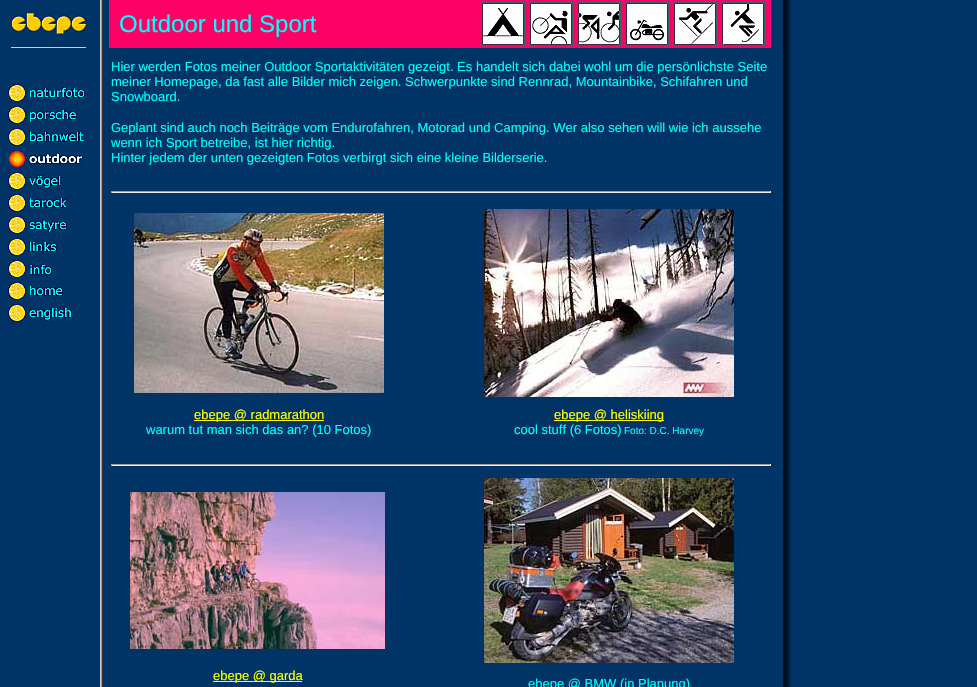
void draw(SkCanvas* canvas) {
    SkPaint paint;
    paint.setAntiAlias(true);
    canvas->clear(0xFF003366);
    canvas->drawImageRect(SkImages::DeferredFromEncodedData(SkData::MakeFromFileName("img1.png")), SkRect::MakeXYWH(100, 0, 692, 687), SkSamplingOptions());
    paint.setColor(0xFFFF0066);
    canvas->drawRect(SkRect::MakeXYWH(109, 0, 662, 48), paint);
    canvas->drawImageRect(SkImages::DeferredFromEncodedData(SkData::MakeFromFileName("img2.png")), SkRect::MakeXYWH(11, 13, 75, 35), SkSamplingOptions());
    SkFont font1(fontMgr->matchFamilyStyle("Liberation Sans", SkFontStyle::Normal()), 24);
    font1.setSubpixel(true);
    paint.setColor(0xFF00FFFF);
    canvas->drawString("Outdoor und Sport", 119, 32, font1, paint);
    canvas->drawImageRect(SkImages::DeferredFromEncodedData(SkData::MakeFromFileName("img3.png")), SkRect::MakeXYWH(481, 2, 284, 44), SkSamplingOptions());
    canvas->drawImageRect(SkImages::DeferredFromEncodedData(SkData::MakeFromFileName("img4.png")), SkRect::MakeXYWH(8, 84, 78, 18), SkSamplingOptions());
    canvas->drawImageRect(SkImages::DeferredFromEncodedData(SkData::MakeFromFileName("img5.png")), SkRect::MakeXYWH(8, 106, 69, 18), SkSamplingOptions());
    canvas->drawImageRect(SkImages::DeferredFromEncodedData(SkData::MakeFromFileName("img6.png")), SkRect::MakeXYWH(8, 128, 77, 18), SkSamplingOptions());
    canvas->drawImageRect(SkImages::DeferredFromEncodedData(SkData::MakeFromFileName("img7.png")), SkRect::MakeXYWH(8, 150, 75, 18), SkSamplingOptions());
    canvas->drawImageRect(SkImages::DeferredFromEncodedData(SkData::MakeFromFileName("img8.png")), SkRect::MakeXYWH(8, 172, 54, 18), SkSamplingOptions());
    canvas->drawImageRect(SkImages::DeferredFromEncodedData(SkData::MakeFromFileName("img9.png")), SkRect::MakeXYWH(8, 194, 59, 18), SkSamplingOptions());
    canvas->drawImageRect(SkImages::DeferredFromEncodedData(SkData::MakeFromFileName("img10.png")), SkRect::MakeXYWH(8, 216, 59, 18), SkSamplingOptions());
    canvas->drawImageRect(SkImages::DeferredFromEncodedData(SkData::MakeFromFileName("img11.png")), SkRect::MakeXYWH(8, 238, 49, 18), SkSamplingOptions());
    canvas->drawImageRect(SkImages::DeferredFromEncodedData(SkData::MakeFromFileName("img12.png")), SkRect::MakeXYWH(8, 260, 45, 18), SkSamplingOptions());
    canvas->drawImageRect(SkImages::DeferredFromEncodedData(SkData::MakeFromFileName("img13.png")), SkRect::MakeXYWH(8, 282, 56, 18), SkSamplingOptions());
    canvas->drawImageRect(SkImages::DeferredFromEncodedData(SkData::MakeFromFileName("img14.png")), SkRect::MakeXYWH(8, 304, 64, 19), SkSamplingOptions());
    SkFont font2(fontMgr->matchFamilyStyle("Liberation Sans", SkFontStyle::Normal()), 13);
    font2.setSubpixel(true);
    canvas->drawString("Hier werden Fotos meiner Outdoor Sportaktivitäten gezeigt. Es handelt sich dabei wohl um die persönlichste Seite", 111, 71, font2, paint);
    canvas->drawString("meiner Homepage, da fast alle Bilder mich zeigen. Schwerpunkte sind Rennrad, Mountainbike, Schifahren und", 111, 86, font2, paint);
    canvas->drawString("Snowboard.", 111, 101, font2, paint);
    canvas->drawString("Geplant sind auch noch Beiträge vom Endurofahren, Motorad und Camping. Wer also sehen will wie ich aussehe", 111, 132, font2, paint);
    canvas->drawString("wenn ich Sport betreibe, ist hier richtig.", 111, 147, font2, paint);
    canvas->drawString("Hinter jedem der unten gezeigten Fotos verbirgt sich eine kleine Bilderserie.", 111, 162, font2, paint);
    paint.setColor(0xFF9F9F9F);
    canvas->drawRect(SkRect::MakeXYWH(111, 191, 660, 1), paint);
    paint.setColor(0xFFEEEEEE);
    canvas->drawRect(SkRect::MakeXYWH(770, 191, 1, 2), paint);
    canvas->drawRect(SkRect::MakeXYWH(111, 192, 660, 1), paint);
    paint.setColor(0xFF9F9F9F);
    canvas->drawRect(SkRect::MakeXYWH(111, 191, 1, 2), paint);
    canvas->drawImageRect(SkImages::DeferredFromEncodedData(SkData::MakeFromFileName("img15.png")), SkRect::MakeXYWH(134, 213, 250, 180), SkSamplingOptions());
    canvas->drawImageRect(SkImages::DeferredFromEncodedData(SkData::MakeFromFileName("img16.png")), SkRect::MakeXYWH(484, 209, 250, 188), SkSamplingOptions());
    paint.setColor(0xFFFFFF00);
    canvas->drawRect(SkRect::MakeXYWH(194, 420, 130, 1), paint);
    canvas->drawString("ebepe @ radmarathon", 194, 419, font2, paint);
    paint.setColor(0xFF00FFFF);
    canvas->drawString("warum tut man sich das an? (10 Fotos)", 146, 434, font2, paint);
    paint.setColor(0xFFFFFF00);
    canvas->drawRect(SkRect::MakeXYWH(554, 420, 110, 1), paint);
    canvas->drawString("ebepe @ heliskiing", 554, 419, font2, paint);
    paint.setColor(0xFF00FFFF);
    canvas->drawString("cool stuff (6 Fotos)", 514, 434, font2, paint);
    SkFont font3(fontMgr->matchFamilyStyle("Liberation Sans", SkFontStyle::Normal()), 10);
    font3.setSubpixel(true);
    canvas->drawString("Foto: D.C. Harvey", 624, 434, font3, paint);
    paint.setColor(0xFF9F9F9F);
    canvas->drawRect(SkRect::MakeXYWH(111, 464, 660, 1), paint);
    paint.setColor(0xFFEEEEEE);
    canvas->drawRect(SkRect::MakeXYWH(770, 464, 1, 2), paint);
    canvas->drawRect(SkRect::MakeXYWH(111, 465, 660, 1), paint);
    paint.setColor(0xFF9F9F9F);
    canvas->drawRect(SkRect::MakeXYWH(111, 464, 1, 2), paint);
    canvas->drawImageRect(SkImages::DeferredFromEncodedData(SkData::MakeFromFileName("img17.png")), SkRect::MakeXYWH(130, 492, 255, 157), SkSamplingOptions());
    canvas->drawImageRect(SkImages::DeferredFromEncodedData(SkData::MakeFromFileName("img18.png")), SkRect::MakeXYWH(484, 478, 250, 185), SkSamplingOptions());
    paint.setColor(0xFFFFFF00);
    canvas->drawRect(SkRect::MakeXYWH(213, 681, 89, 1), paint);
    canvas->drawString("ebepe @ garda", 213, 680, font2, paint);
    paint.setColor(0xFF00FFFF);
    canvas->drawString("ebepe @ BMW (in Planung)", 528, 688, font2, paint);
}
